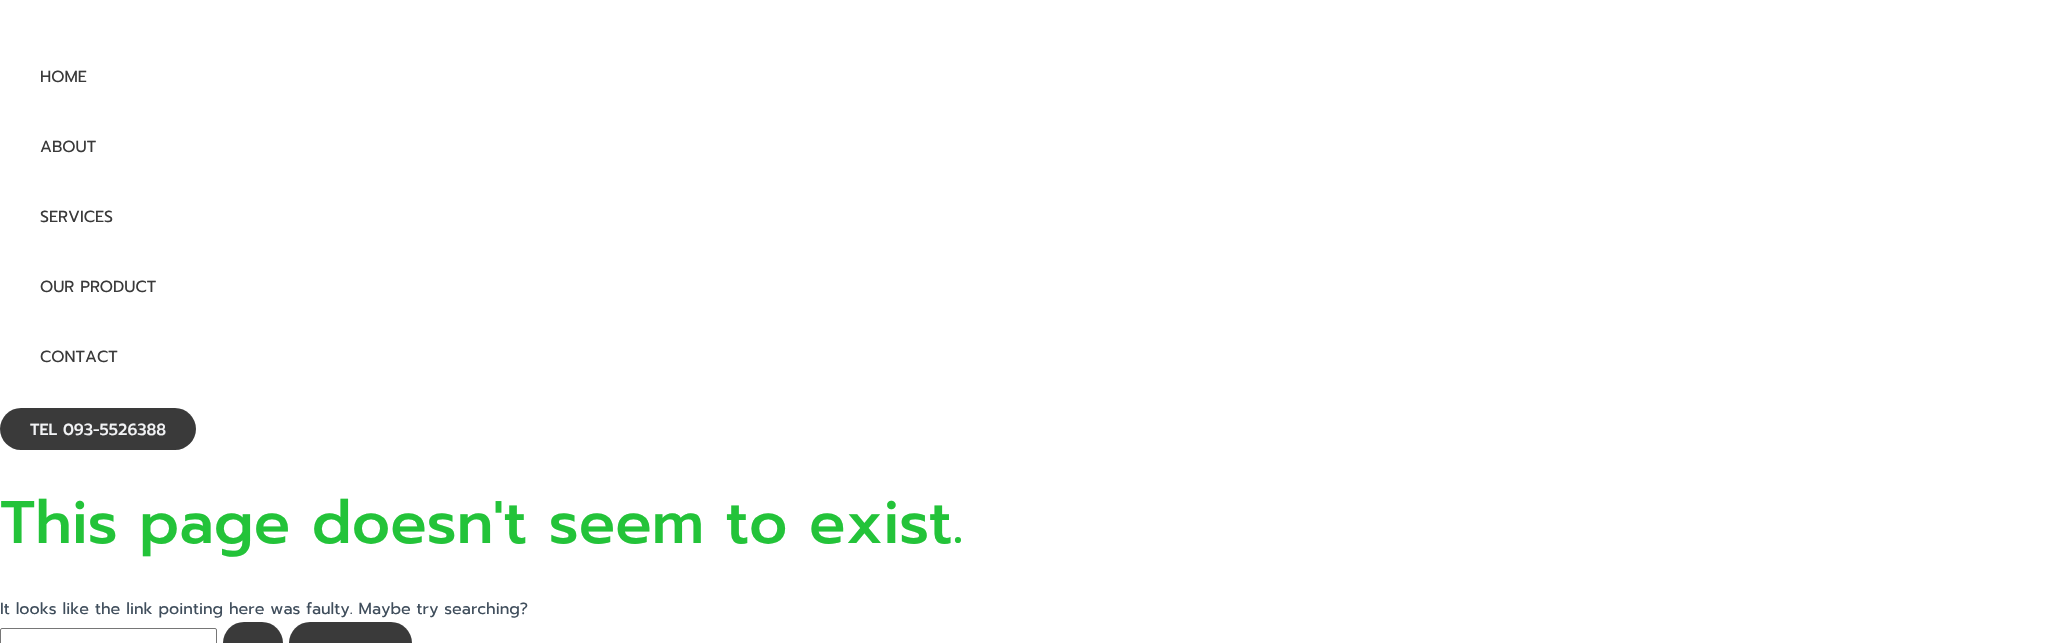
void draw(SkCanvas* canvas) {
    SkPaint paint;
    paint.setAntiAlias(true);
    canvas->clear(0xFFFFFFFF);
    SkFont font1(fontMgr->matchFamilyStyle("Prompt", SkFontStyle::Normal()), 16);
    font1.setSubpixel(true);
    paint.setColor(0xFF3A3A3A);
    canvas->drawString("HOME", 40, 82, font1, paint);
    canvas->drawString("ABOUT", 40, 152, font1, paint);
    canvas->drawString("SERVICES", 40, 222, font1, paint);
    canvas->drawString("OUR PRODUCT", 40, 292, font1, paint);
    canvas->drawString("CONTACT", 40, 362, font1, paint);
    canvas->drawRoundRect(SkRect::MakeXYWH(0, 408, 196, 42), 21, 21, paint);
    SkFont font2(fontMgr->matchFamilyStyle("Prompt", SkFontStyle(500, SkFontStyle::kNormal_Width, SkFontStyle::kUpright_Slant)), 16);
    font2.setSubpixel(true);
    paint.setColor(0xFFF2F3F5);
    canvas->drawString("TEL 093-5526388", 30, 435, font2, paint);
    SkFont font3(fontMgr->matchFamilyStyle("Prompt", SkFontStyle(500, SkFontStyle::kNormal_Width, SkFontStyle::kUpright_Slant)), 60);
    font3.setSubpixel(true);
    paint.setColor(0xFF23C339);
    canvas->drawString("This page doesn't seem to exist.", 0, 543, font3, paint);
    paint.setColor(0xFF404E5C);
    canvas->drawString("It looks like the link pointing here was faulty. Maybe try searching?", 0, 614, font1, paint);
    paint.setStyle(SkPaint::kStroke_Style);
    paint.setStrokeWidth(1);
    paint.setColor(0xFF767676);
    canvas->drawRoundRect(SkRect::MakeXYWH(0.5f, 628.5f, 216, 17), 1.5f, 1.5f, paint);
    paint.setStyle(SkPaint::kFill_Style);
    paint.setColor(0xFF3A3A3A);
    canvas->drawRoundRect(SkRect::MakeXYWH(223, 622, 60, 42), 21, 21, paint);
    canvas->drawRoundRect(SkRect::MakeXYWH(289, 622, 123, 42), 21, 21, paint);
}
